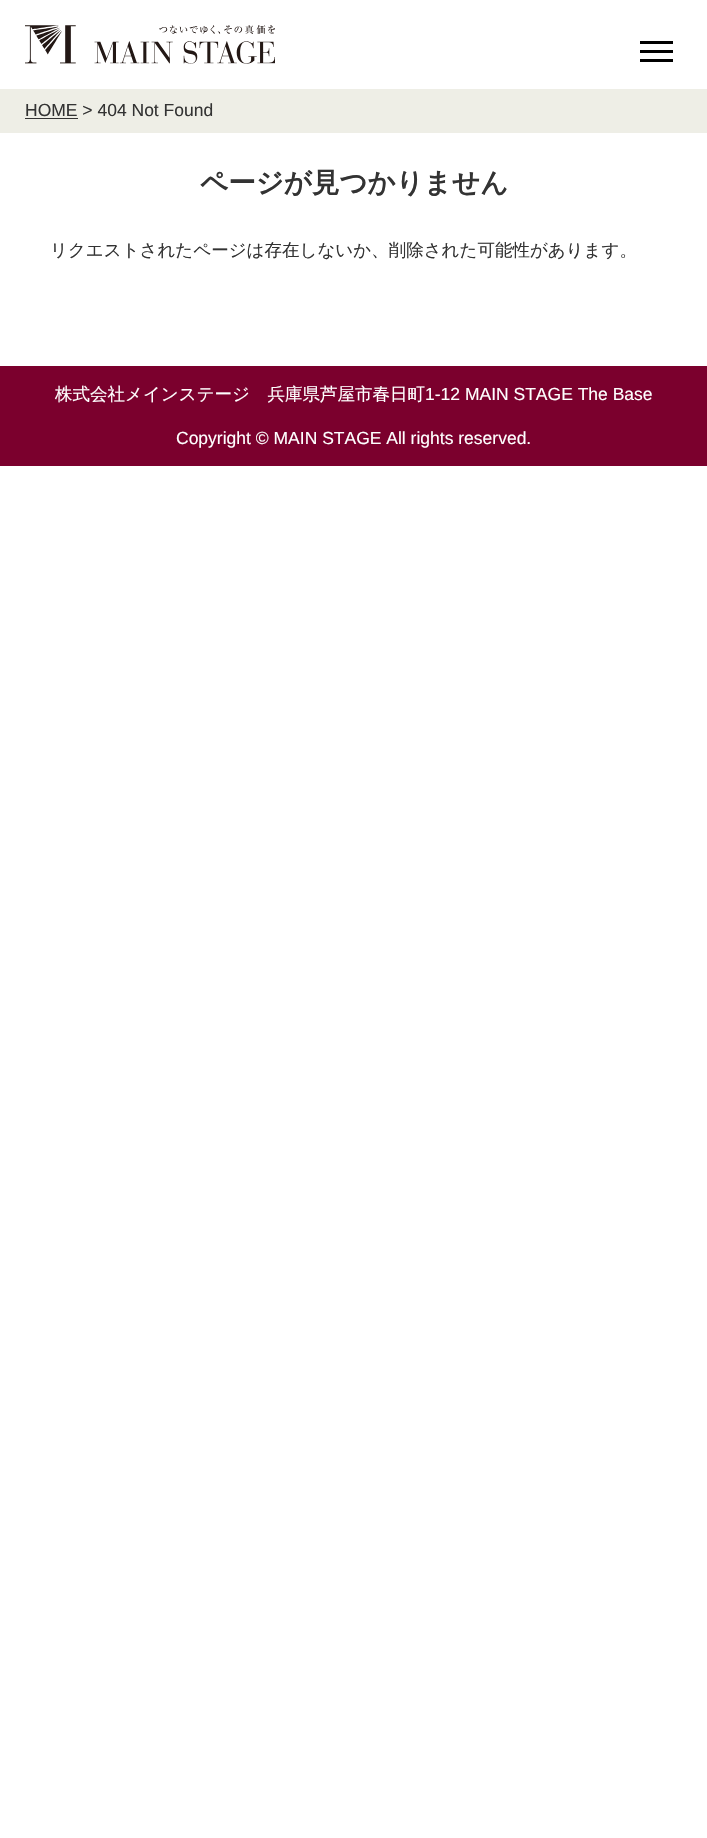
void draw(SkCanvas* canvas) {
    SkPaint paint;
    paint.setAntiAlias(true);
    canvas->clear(0xFFFFFFFF);
    canvas->drawImageRect(SkImages::DeferredFromEncodedData(SkData::MakeFromFileName("img1.png")), SkRect::MakeXYWH(25, 25, 250, 39), SkSamplingOptions());
    paint.setColor(0xFF000000);
    canvas->drawRect(SkRect::MakeXYWH(640, 41, 33, 3), paint);
    canvas->drawRect(SkRect::MakeXYWH(640, 50, 33, 3), paint);
    canvas->drawRect(SkRect::MakeXYWH(640, 59, 33, 3), paint);
    paint.setColor(0xFFEEEEE6);
    canvas->drawRect(SkRect::MakeXYWH(0, 89, 707, 44), paint);
    SkFont font1(fontMgr->matchFamilyStyle("Liberation Sans", SkFontStyle::Normal()), 17.5f);
    font1.setSubpixel(true);
    paint.setColor(0xFF333333);
    canvas->drawString("HOME > 404 Not Found", 25, 116, font1, paint);
    canvas->drawRect(SkRect::MakeXYWH(25, 118, 53, 1), paint);
    SkFont font2(fontMgr->matchFamilyStyle("WenQuanYi Zen Hei", SkFontStyle::Bold()), 27.5f);
    font2.setSubpixel(true);
    canvas->drawString("ページが見つかりません", 200, 192, font2, paint);
    SkFont font3(fontMgr->matchFamilyStyle("WenQuanYi Zen Hei", SkFontStyle(500, SkFontStyle::kNormal_Width, SkFontStyle::kUpright_Slant)), 17.5f);
    font3.setSubpixel(true);
    canvas->drawString("リクエストされたページは存在しないか、削除された可能性があります。", 50, 256, font3, paint);
    paint.setColor(0xFF7B002D);
    canvas->drawRect(SkRect::MakeXYWH(0, 366, 707, 100), paint);
    paint.setColor(0xFFFFFFFF);
    canvas->drawString("株式会社メインステージ　兵庫県芦屋市春日町", 55, 400, font3, paint);
    canvas->drawString("1-12 MAIN STAGE The Base", 425, 400, font1, paint);
    canvas->drawString("Copyright © MAIN STAGE All rights reserved.", 176, 444, font1, paint);
}
